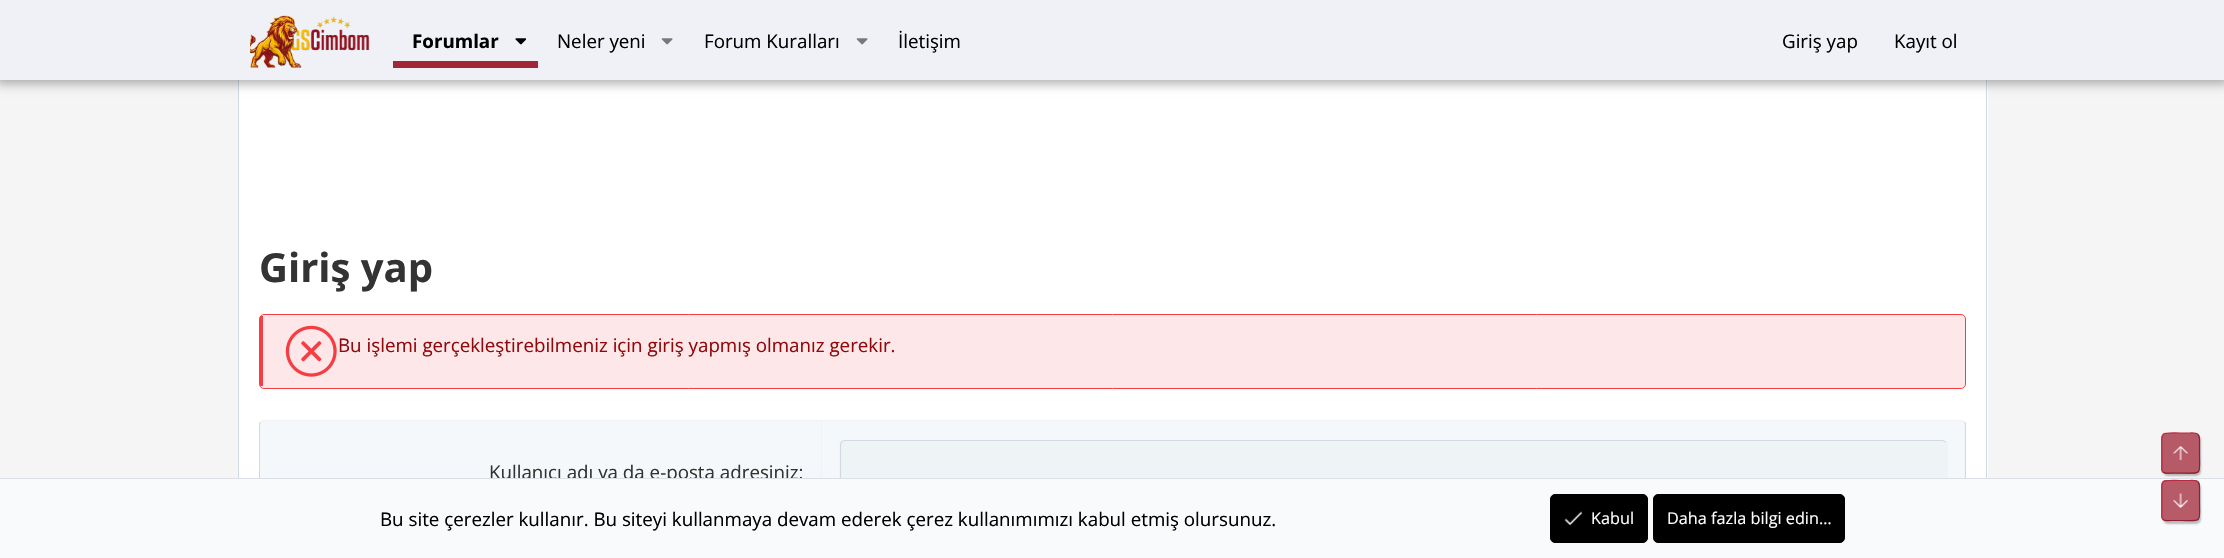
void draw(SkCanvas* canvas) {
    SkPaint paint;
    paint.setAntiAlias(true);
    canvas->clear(0xFFF5F5F5);
    paint.setColor(0xFFFFFFFF);
    canvas->drawRect(SkRect::MakeXYWH(239, 80, 1749, 398), paint);
    paint.setColor(0xFFD0DAE2);
    canvas->drawRect(SkRect::MakeXYWH(1986, 80, 1, 398), paint);
    canvas->drawRect(SkRect::MakeXYWH(238, 80, 1, 398), paint);
    paint.setColor(0x4D000000);
    paint.setMaskFilter(SkMaskFilter::MakeBlur(kNormal_SkBlurStyle, 5));
    canvas->drawRect(SkRect::MakeXYWH(-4, -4, 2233, 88), paint);
    paint.setMaskFilter(nullptr);
    paint.setColor(0xFFEFF1F6);
    canvas->drawRect(SkRect::MakeXYWH(0, 0, 2224, 80), paint);
    canvas->drawImageRect(SkImages::DeferredFromEncodedData(SkData::MakeFromFileName("img1.png")), SkRect::MakeXYWH(250, 15, 120, 53), SkSamplingOptions());
    paint.setColor(0xFFA12638);
    canvas->drawRect(SkRect::MakeXYWH(393, 61, 145, 7), paint);
    SkFont font1(fontMgr->matchFamilyStyle("Open Sans", SkFontStyle::Bold()), 18.75f);
    font1.setSubpixel(true);
    paint.setColor(0xFF000000);
    canvas->drawString("Forumlar", 412, 48, font1, paint);
    canvas->drawImageRect(SkImages::DeferredFromEncodedData(SkData::MakeFromFileName("img2.png")), SkRect::MakeXYWH(515, 38, 11, 7), SkSamplingOptions());
    SkFont font2(fontMgr->matchFamilyStyle("Open Sans", SkFontStyle::Normal()), 18.75f);
    font2.setSubpixel(true);
    canvas->drawString("Neler yeni", 557, 48, font2, paint);
    canvas->drawImageRect(SkImages::DeferredFromEncodedData(SkData::MakeFromFileName("img3.png")), SkRect::MakeXYWH(661, 38, 12, 7), SkSamplingOptions());
    canvas->drawString("Forum Kuralları", 704, 48, font2, paint);
    canvas->drawImageRect(SkImages::DeferredFromEncodedData(SkData::MakeFromFileName("img3.png")), SkRect::MakeXYWH(856, 38, 12, 7), SkSamplingOptions());
    canvas->drawString("İletişim", 898, 48, font2, paint);
    canvas->drawString("Giriş yap", 1782, 48, font2, paint);
    canvas->drawString("Kayıt ol", 1894, 48, font2, paint);
    SkFont font3(fontMgr->matchFamilyStyle("Open Sans", SkFontStyle::Bold()), 40);
    font3.setSubpixel(true);
    paint.setColor(0xFF333333);
    canvas->drawString("Giriş yap", 259, 282, font3, paint);
    paint.setColor(0xFFFEE7E8);
    canvas->drawPath(SkPathBuilder().moveTo(264, 315).lineTo(1961, 315).cubicTo(1963, 315, 1965, 317, 1965, 319).lineTo(1965, 384).cubicTo(1965, 386, 1963, 388, 1961, 388).lineTo(264, 388).cubicTo(263, 388, 262, 386, 262, 384).lineTo(262, 319).cubicTo(262, 317, 263, 315, 264, 315).close().detach(), paint);
    paint.setStyle(SkPaint::kStroke_Style);
    paint.setStrokeWidth(1);
    paint.setColor(0xFFF53D43);
    canvas->drawRoundRect(SkRect::MakeXYWH(259.5f, 314.5f, 1706, 74), 4.5f, 4.5f, paint);
    paint.setStyle(SkPaint::kFill_Style);
    canvas->drawRect(SkRect::MakeXYWH(260, 316, 3, 70), paint);
    canvas->drawImageRect(SkImages::DeferredFromEncodedData(SkData::MakeFromFileName("img4.png")), SkRect::MakeXYWH(285, 325, 52, 52), SkSamplingOptions());
    paint.setColor(0xFF91080C);
    canvas->drawString("Bu işlemi gerçekleştirebilmeniz için giriş yapmış olmanız gerekir.", 338, 352, font2, paint);
    paint.setColor(0xFFF5F8FA);
    canvas->drawRoundRect(SkRect::MakeXYWH(259, 420, 1707, 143), 5, 5, paint);
    paint.setStyle(SkPaint::kStroke_Style);
    paint.setStrokeWidth(1.2f);
    paint.setColor(0xFFEFF1F6);
    canvas->drawPath(SkPathBuilder().moveTo(260.5f, 422).lineTo(264, 420.5f).lineTo(1961, 420.5f).lineTo(1964.5f, 422).detach(), paint);
    canvas->save();
    canvas->clipRect(SkRect::MakeXYWH(259, 234, 1707, 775));
    paint.setColor(0xFFD0DAE2);
    canvas->drawPath(SkPathBuilder().moveTo(1964.5f, 422).lineTo(1965.5f, 423.5f).lineTo(1965.5f, 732.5f).lineTo(1965.5f, 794).lineTo(1964.5f, 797).detach(), paint);
    canvas->drawPath(SkPathBuilder().moveTo(260.5f, 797).lineTo(259.5f, 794).lineTo(259.5f, 423.5f).lineTo(260.5f, 422).detach(), paint);
    canvas->restore();
    paint.setStyle(SkPaint::kFill_Style);
    paint.setColor(0xFFF5F8FA);
    canvas->drawPath(SkPathBuilder().moveTo(264, 421).lineTo(823, 421).lineTo(823, 521).lineTo(260, 521).lineTo(260, 425).cubicTo(260, 423, 262, 421, 264, 421).close().detach(), paint);
    paint.setColor(0xFFEFF1F6);
    canvas->drawRect(SkRect::MakeXYWH(821, 421, 1, 57), paint);
    paint.setColor(0xFF333333);
    canvas->drawString("Kullanıcı adı ya da e-posta adresiniz:", 489, 479, font2, paint);
    paint.setColor(0xFFEEF3F6);
    canvas->drawRoundRect(SkRect::MakeXYWH(840, 440, 1108, 63), 5, 5, paint);
    paint.setStyle(SkPaint::kStroke_Style);
    paint.setColor(0xFFD0DAE2);
    canvas->drawPath(SkPathBuilder().moveTo(842, 500.5f).lineTo(840.5f, 498.5f).lineTo(840.5f, 444.5f).lineTo(841.5f, 442).cubicTo(842.5f, 441, 843.5f, 440.5f, 845, 440.5f).lineTo(1942.5f, 440.5f).lineTo(1945.5f, 442).detach(), paint);
    paint.setStyle(SkPaint::kFill_Style);
    paint.setColor(0xFFF9FAFB);
    canvas->drawRect(SkRect::MakeXYWH(0, 479, 2224, 79), paint);
    paint.setColor(0xFFDBE0E6);
    canvas->drawRect(SkRect::MakeXYWH(0, 478, 2224, 1), paint);
    canvas->save();
    canvas->clipPath(SkPathBuilder(SkPathFillType::kEvenOdd).moveTo(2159, 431).lineTo(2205, 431).lineTo(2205, 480).lineTo(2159, 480).close().moveTo(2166, 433).lineTo(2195, 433).cubicTo(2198, 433, 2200, 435, 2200, 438).lineTo(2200, 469).cubicTo(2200, 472, 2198, 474, 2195, 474).lineTo(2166, 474).cubicTo(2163, 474, 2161, 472, 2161, 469).lineTo(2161, 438).cubicTo(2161, 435, 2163, 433, 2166, 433).close().detach(), true);
    paint.setColor(0x40000000);
    paint.setMaskFilter(SkMaskFilter::MakeBlur(kNormal_SkBlurStyle, 1));
    canvas->drawRoundRect(SkRect::MakeXYWH(2163, 435, 38, 41), 5, 5, paint);
    paint.setMaskFilter(nullptr);
    canvas->restore();
    paint.setColor(0xBFA12638);
    canvas->drawRoundRect(SkRect::MakeXYWH(2161, 433, 39, 41), 5, 5, paint);
    paint.setStyle(SkPaint::kStroke_Style);
    paint.setColor(0xFF8C2131);
    canvas->drawPath(SkPathBuilder().moveTo(2198, 434.5f).cubicTo(2200, 436.5f, 2199.5f, 440.5f, 2199.5f, 442.5f).lineTo(2199.5f, 453).cubicTo(2199.5f, 476, 2203, 473, 2180.5f, 473).lineTo(2171, 473).cubicTo(2168.5f, 473, 2165, 474, 2163, 472).detach(), paint);
    paint.setColor(0xFFB62B40);
    canvas->drawPath(SkPathBuilder().moveTo(2163, 472).cubicTo(2161, 470, 2162, 466, 2162, 463.5f).lineTo(2162, 453).cubicTo(2162, 430.5f, 2158.5f, 433, 2180.5f, 433).lineTo(2190, 433).cubicTo(2192.5f, 433, 2196, 432.5f, 2198, 434.5f).detach(), paint);
    canvas->drawImageRect(SkImages::DeferredFromEncodedData(SkData::MakeFromFileName("img5.png")), SkRect::MakeXYWH(2173, 446, 15, 15), SkSamplingOptions());
    canvas->save();
    canvas->clipPath(SkPathBuilder(SkPathFillType::kEvenOdd).moveTo(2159, 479).lineTo(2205, 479).lineTo(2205, 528).lineTo(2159, 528).close().moveTo(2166, 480).lineTo(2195, 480).cubicTo(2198, 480, 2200, 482, 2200, 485).lineTo(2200, 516).cubicTo(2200, 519, 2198, 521, 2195, 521).lineTo(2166, 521).cubicTo(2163, 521, 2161, 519, 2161, 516).lineTo(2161, 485).cubicTo(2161, 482, 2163, 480, 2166, 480).close().detach(), true);
    paint.setStyle(SkPaint::kFill_Style);
    paint.setColor(0x40000000);
    paint.setMaskFilter(SkMaskFilter::MakeBlur(kNormal_SkBlurStyle, 1));
    canvas->drawRoundRect(SkRect::MakeXYWH(2163, 483, 38, 41), 5, 5, paint);
    paint.setMaskFilter(nullptr);
    canvas->restore();
    paint.setColor(0xBFA12638);
    canvas->drawRoundRect(SkRect::MakeXYWH(2161, 480, 39, 41), 5, 5, paint);
    paint.setStyle(SkPaint::kStroke_Style);
    paint.setColor(0xFF8C2131);
    canvas->drawPath(SkPathBuilder().moveTo(2198, 482).cubicTo(2200, 484, 2199.5f, 488, 2199.5f, 490).lineTo(2199.5f, 500.5f).cubicTo(2199.5f, 523.5f, 2203, 520.5f, 2180.5f, 520.5f).lineTo(2171, 520.5f).cubicTo(2168.5f, 520.5f, 2165, 521.5f, 2163, 519.5f).detach(), paint);
    paint.setColor(0xFFB62B40);
    canvas->drawPath(SkPathBuilder().moveTo(2163, 519.5f).cubicTo(2161, 517.5f, 2162, 513.5f, 2162, 511).lineTo(2162, 500.5f).cubicTo(2162, 478, 2158.5f, 480.5f, 2180.5f, 480.5f).lineTo(2190, 480.5f).cubicTo(2192.5f, 480.5f, 2196, 480, 2198, 482).detach(), paint);
    canvas->drawImageRect(SkImages::DeferredFromEncodedData(SkData::MakeFromFileName("img6.png")), SkRect::MakeXYWH(2173, 493, 16, 15), SkSamplingOptions());
    paint.setStyle(SkPaint::kFill_Style);
    paint.setColor(0xFF000000);
    canvas->drawString("Bu site çerezler kullanır. Bu siteyi kullanmaya devam ederek çerez kullanımımızı kabul etmiş olursunuz.", 380, 526, font2, paint);
    canvas->drawRoundRect(SkRect::MakeXYWH(1550.5f, 494.5f, 97, 48), 4.5f, 4.5f, paint);
    paint.setStyle(SkPaint::kStroke_Style);
    paint.setStrokeWidth(1);
    canvas->drawRoundRect(SkRect::MakeXYWH(1550.5f, 494.5f, 97, 48), 4.5f, 4.5f, paint);
    canvas->drawImageRect(SkImages::DeferredFromEncodedData(SkData::MakeFromFileName("img7.png")), SkRect::MakeXYWH(1564, 511, 19, 14), SkSamplingOptions());
    SkFont font4(fontMgr->matchFamilyStyle("Open Sans", SkFontStyle::Normal()), 16.25f);
    font4.setSubpixel(true);
    paint.setStyle(SkPaint::kFill_Style);
    paint.setColor(0xFFFFFFFF);
    canvas->drawString("Kabul", 1591, 524, font4, paint);
    paint.setColor(0xFF000000);
    canvas->drawRoundRect(SkRect::MakeXYWH(1653.5f, 494.5f, 191, 48), 4.5f, 4.5f, paint);
    paint.setStyle(SkPaint::kStroke_Style);
    canvas->drawRoundRect(SkRect::MakeXYWH(1653.5f, 494.5f, 191, 48), 4.5f, 4.5f, paint);
    paint.setStyle(SkPaint::kFill_Style);
    paint.setColor(0xFFFFFFFF);
    canvas->drawString("Daha fazla bilgi edin…", 1667, 524, font4, paint);
}
